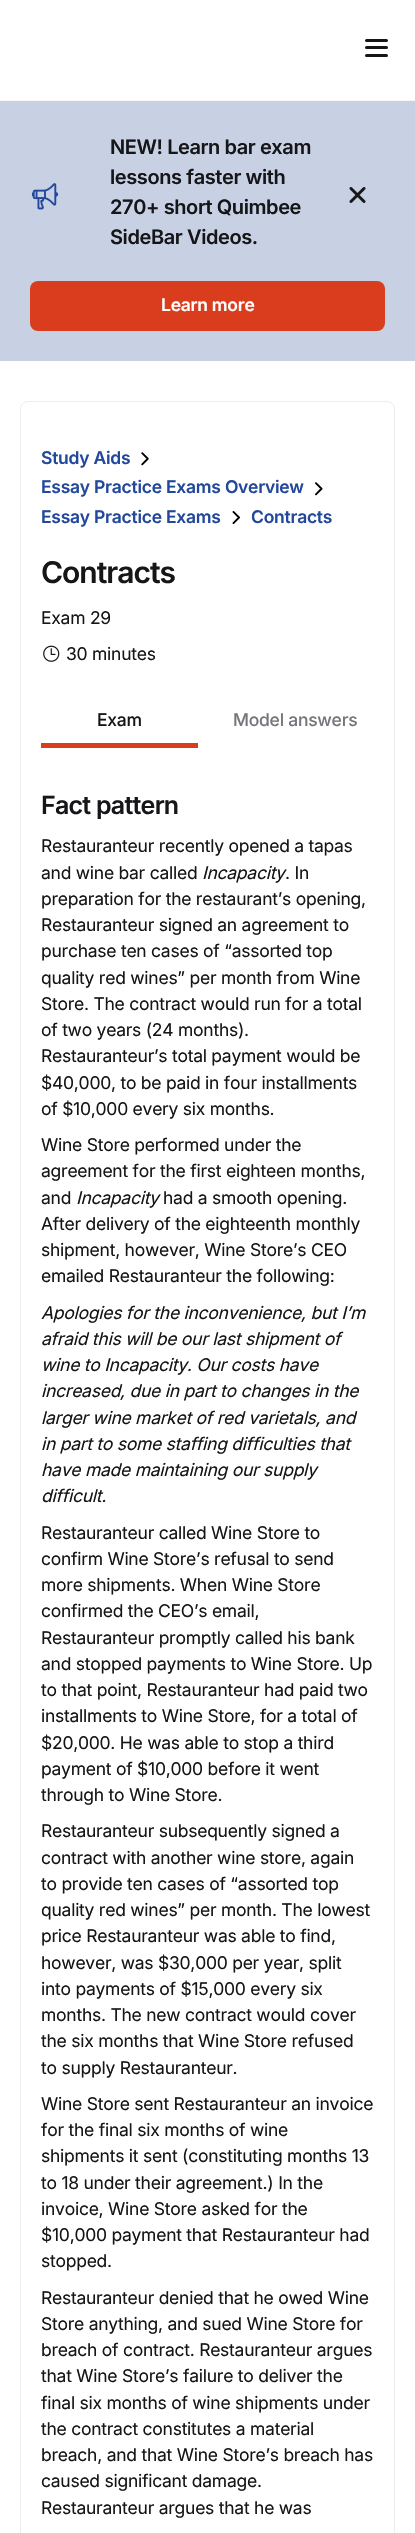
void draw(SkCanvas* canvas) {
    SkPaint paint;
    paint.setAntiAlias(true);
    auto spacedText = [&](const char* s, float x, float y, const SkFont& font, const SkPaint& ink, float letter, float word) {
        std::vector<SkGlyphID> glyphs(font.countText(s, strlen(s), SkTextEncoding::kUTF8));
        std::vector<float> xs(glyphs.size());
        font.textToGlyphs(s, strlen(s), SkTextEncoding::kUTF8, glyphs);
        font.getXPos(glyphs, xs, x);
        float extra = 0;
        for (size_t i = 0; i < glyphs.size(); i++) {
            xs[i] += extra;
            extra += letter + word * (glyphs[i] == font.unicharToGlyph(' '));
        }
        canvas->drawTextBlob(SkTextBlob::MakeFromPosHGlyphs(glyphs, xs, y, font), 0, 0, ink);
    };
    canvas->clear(0xFFFFFFFF);
    paint.setColor(0xFFF5F5F5);
    canvas->drawRect(SkRect::MakeXYWH(0, 100, 415, 1), paint);
    paint.setColor(0xFF161619);
    canvas->drawRoundRect(SkRect::MakeXYWH(365, 39, 23, 3), 1.5f, 1.5f, paint);
    canvas->drawRoundRect(SkRect::MakeXYWH(365, 46, 23, 3), 1.5f, 1.5f, paint);
    canvas->drawRoundRect(SkRect::MakeXYWH(365, 54, 23, 3), 1.5f, 1.5f, paint);
    paint.setColor(0xFFC8D1E4);
    canvas->drawRect(SkRect::MakeXYWH(0, 101, 415, 260), paint);
    canvas->drawImageRect(SkImages::DeferredFromEncodedData(SkData::MakeFromFileName("img1.png")), SkRect::MakeXYWH(31, 183, 28, 27), SkSamplingOptions());
    SkFont font1(fontMgr->matchFamilyStyle("Inter", SkFontStyle(600, SkFontStyle::kNormal_Width, SkFontStyle::kUpright_Slant)), 20);
    font1.setSubpixel(true);
    paint.setColor(0xFF161619);
    spacedText("NEW! Learn bar exam", 110, 154, font1, paint, -0.4f, 0);
    spacedText("lessons faster with", 110, 184, font1, paint, -0.4f, 0);
    spacedText("270+ short Quimbee", 110, 214, font1, paint, -0.4f, 0);
    spacedText("SideBar Videos.", 110, 244, font1, paint, -0.4f, 0);
    canvas->drawImageRect(SkImages::DeferredFromEncodedData(SkData::MakeFromFileName("img2.png")), SkRect::MakeXYWH(349, 187, 17, 16), SkSamplingOptions());
    paint.setColor(0xFFDA3D1D);
    canvas->drawRoundRect(SkRect::MakeXYWH(30, 281, 355, 50), 8, 8, paint);
    SkFont font2(fontMgr->matchFamilyStyle("Inter", SkFontStyle(600, SkFontStyle::kNormal_Width, SkFontStyle::kUpright_Slant)), 17.5f);
    font2.setSubpixel(true);
    paint.setColor(0xFFFFFFFF);
    spacedText("Learn more", 161, 311, font2, paint, -0.25f, 0);
    paint.setStyle(SkPaint::kStroke_Style);
    paint.setStrokeWidth(1);
    paint.setColor(0xFFEDEDED);
    canvas->drawRoundRect(SkRect::MakeXYWH(20.5f, 401.5f, 374, 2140), 7.5f, 7.5f, paint);
    paint.setStyle(SkPaint::kFill_Style);
    paint.setColor(0xFF22489B);
    spacedText("Study Aids", 41, 464, font2, paint, -0.25f, 0);
    canvas->drawImageRect(SkImages::DeferredFromEncodedData(SkData::MakeFromFileName("img3.png")), SkRect::MakeXYWH(141, 452, 8, 14), SkSamplingOptions());
    spacedText("Essay Practice Exams Overview", 41, 493, font2, paint, -0.25f, 0);
    canvas->drawImageRect(SkImages::DeferredFromEncodedData(SkData::MakeFromFileName("img4.png")), SkRect::MakeXYWH(315, 482, 8, 14), SkSamplingOptions());
    spacedText("Essay Practice Exams", 41, 523, font2, paint, -0.25f, 0);
    canvas->drawImageRect(SkImages::DeferredFromEncodedData(SkData::MakeFromFileName("img5.png")), SkRect::MakeXYWH(232, 511, 8, 13), SkSamplingOptions());
    spacedText("Contracts", 251, 523, font2, paint, -0.25f, 0);
    SkFont font3(fontMgr->matchFamilyStyle("Inter", SkFontStyle(600, SkFontStyle::kNormal_Width, SkFontStyle::kUpright_Slant)), 30);
    font3.setSubpixel(true);
    paint.setColor(0xFF161619);
    spacedText("Contracts", 41, 583, font3, paint, -1, 0);
    SkFont font4(fontMgr->matchFamilyStyle("Inter", SkFontStyle::Normal()), 17.5f);
    font4.setSubpixel(true);
    spacedText("Exam 29", 41, 624, font4, paint, -0.25f, 0);
    canvas->drawImageRect(SkImages::DeferredFromEncodedData(SkData::MakeFromFileName("img6.png")), SkRect::MakeXYWH(43, 645, 17, 17), SkSamplingOptions());
    spacedText("30 minutes", 66, 660, font4, paint, -0.25f, 0);
    paint.setColor(0xFFDA3D1D);
    canvas->drawRect(SkRect::MakeXYWH(41, 743, 157, 5), paint);
    SkFont font5(fontMgr->matchFamilyStyle("Inter", SkFontStyle(500, SkFontStyle::kNormal_Width, SkFontStyle::kUpright_Slant)), 17.5f);
    font5.setSubpixel(true);
    paint.setColor(0xFF161619);
    spacedText("Exam", 97, 726, font5, paint, -0.25f, 0);
    paint.setColor(0xFF75757B);
    spacedText("Model answers", 233, 726, font5, paint, -0.25f, 0);
    SkFont font6(fontMgr->matchFamilyStyle("Inter", SkFontStyle(600, SkFontStyle::kNormal_Width, SkFontStyle::kUpright_Slant)), 25);
    font6.setSubpixel(true);
    paint.setColor(0xFF161619);
    spacedText("Fact pattern", 41, 814, font6, paint, -0.75f, 0);
    spacedText("Restauranteur recently opened a tapas", 41, 852, font4, paint, -0.25f, 0);
    spacedText("and wine bar called", 41, 879, font4, paint, -0.25f, 0);
    SkFont font7(fontMgr->matchFamilyStyle("Inter", SkFontStyle::Italic()), 17.5f);
    font7.setSubpixel(true);
    spacedText("Incapacity", 202, 879, font7, paint, -0.25f, 0);
    spacedText(". In", 285, 879, font4, paint, -0.25f, 0);
    spacedText("preparation for the restaurant’s opening,", 41, 905, font4, paint, -0.25f, 0);
    spacedText("Restauranteur signed an agreement to", 41, 931, font4, paint, -0.25f, 0);
    spacedText("purchase ten cases of “assorted top", 41, 957, font4, paint, -0.25f, 0);
    spacedText("quality red wines” per month from Wine", 41, 984, font4, paint, -0.25f, 0);
    spacedText("Store. The contract would run for a total", 41, 1010, font4, paint, -0.25f, 0);
    spacedText("of two years (24 months).", 41, 1036, font4, paint, -0.25f, 0);
    spacedText("Restauranteur’s total payment would be", 41, 1062, font4, paint, -0.25f, 0);
    spacedText("$40,000, to be paid in four installments", 41, 1089, font4, paint, -0.25f, 0);
    spacedText("of $10,000 every six months.", 41, 1115, font4, paint, -0.25f, 0);
    spacedText("Wine Store performed under the", 41, 1151, font4, paint, -0.25f, 0);
    spacedText("agreement for the first eighteen months,", 41, 1177, font4, paint, -0.25f, 0);
    spacedText("and", 41, 1204, font4, paint, -0.25f, 0);
    spacedText("Incapacity", 76, 1204, font7, paint, -0.25f, 0);
    spacedText("had a smooth opening.", 163, 1204, font4, paint, -0.25f, 0);
    spacedText("After delivery of the eighteenth monthly", 41, 1230, font4, paint, -0.25f, 0);
    spacedText("shipment, however, Wine Store’s CEO", 41, 1256, font4, paint, -0.25f, 0);
    spacedText("emailed Restauranteur the following:", 41, 1282, font4, paint, -0.25f, 0);
    spacedText("Apologies for the inconvenience, but I’m", 41, 1319, font7, paint, -0.25f, 0);
    spacedText("afraid this will be our last shipment of", 41, 1345, font7, paint, -0.25f, 0);
    spacedText("wine to Incapacity. Our costs have", 41, 1371, font7, paint, -0.25f, 0);
    spacedText("increased, due in part to changes in the", 41, 1397, font7, paint, -0.25f, 0);
    spacedText("larger wine market of red varietals, and", 41, 1424, font7, paint, -0.25f, 0);
    spacedText("in part to some staffing difficulties that", 41, 1450, font7, paint, -0.25f, 0);
    spacedText("have made maintaining our supply", 41, 1476, font7, paint, -0.25f, 0);
    spacedText("difficult.", 41, 1502, font7, paint, -0.25f, 0);
    spacedText("Restauranteur called Wine Store to", 41, 1539, font4, paint, -0.25f, 0);
    spacedText("confirm Wine Store’s refusal to send", 41, 1565, font4, paint, -0.25f, 0);
    spacedText("more shipments. When Wine Store", 41, 1591, font4, paint, -0.25f, 0);
    spacedText("confirmed the CEO’s email,", 41, 1617, font4, paint, -0.25f, 0);
    spacedText("Restauranteur promptly called his bank", 41, 1644, font4, paint, -0.25f, 0);
    spacedText("and stopped payments to Wine Store. Up", 41, 1670, font4, paint, -0.25f, 0);
    spacedText("to that point, Restauranteur had paid two", 41, 1696, font4, paint, -0.25f, 0);
    spacedText("installments to Wine Store, for a total of", 41, 1722, font4, paint, -0.25f, 0);
    spacedText("$20,000. He was able to stop a third", 41, 1749, font4, paint, -0.25f, 0);
    spacedText("payment of $10,000 before it went", 41, 1775, font4, paint, -0.25f, 0);
    spacedText("through to Wine Store.", 41, 1801, font4, paint, -0.25f, 0);
    spacedText("Restauranteur subsequently signed a", 41, 1837, font4, paint, -0.25f, 0);
    spacedText("contract with another wine store, again", 41, 1864, font4, paint, -0.25f, 0);
    spacedText("to provide ten cases of “assorted top", 41, 1890, font4, paint, -0.25f, 0);
    spacedText("quality red wines” per month. The lowest", 41, 1916, font4, paint, -0.25f, 0);
    spacedText("price Restauranteur was able to find,", 41, 1942, font4, paint, -0.25f, 0);
    spacedText("however, was $30,000 per year, split", 41, 1969, font4, paint, -0.25f, 0);
    spacedText("into payments of $15,000 every six", 41, 1995, font4, paint, -0.25f, 0);
    spacedText("months. The new contract would cover", 41, 2021, font4, paint, -0.25f, 0);
    spacedText("the six months that Wine Store refused", 41, 2047, font4, paint, -0.25f, 0);
    spacedText("to supply Restauranteur.", 41, 2074, font4, paint, -0.25f, 0);
    spacedText("Wine Store sent Restauranteur an invoice", 41, 2110, font4, paint, -0.25f, 0);
    spacedText("for the final six months of wine", 41, 2136, font4, paint, -0.25f, 0);
    spacedText("shipments it sent (constituting months 13", 41, 2162, font4, paint, -0.25f, 0);
    spacedText("to 18 under their agreement.) In the", 41, 2189, font4, paint, -0.25f, 0);
    spacedText("invoice, Wine Store asked for the", 41, 2215, font4, paint, -0.25f, 0);
    spacedText("$10,000 payment that Restauranteur had", 41, 2241, font4, paint, -0.25f, 0);
    spacedText("stopped.", 41, 2267, font4, paint, -0.25f, 0);
    spacedText("Restauranteur denied that he owed Wine", 41, 2304, font4, paint, -0.25f, 0);
    spacedText("Store anything, and sued Wine Store for", 41, 2330, font4, paint, -0.25f, 0);
    spacedText("breach of contract. Restauranteur argues", 41, 2356, font4, paint, -0.25f, 0);
    spacedText("that Wine Store’s failure to deliver the", 41, 2382, font4, paint, -0.25f, 0);
    spacedText("final six months of wine shipments under", 41, 2409, font4, paint, -0.25f, 0);
    spacedText("the contract constitutes a material", 41, 2435, font4, paint, -0.25f, 0);
    spacedText("breach, and that Wine Store’s breach has", 41, 2461, font4, paint, -0.25f, 0);
    spacedText("caused significant damage.", 41, 2487, font4, paint, -0.25f, 0);
    spacedText("Restauranteur argues that he was", 41, 2514, font4, paint, -0.25f, 0);
}
